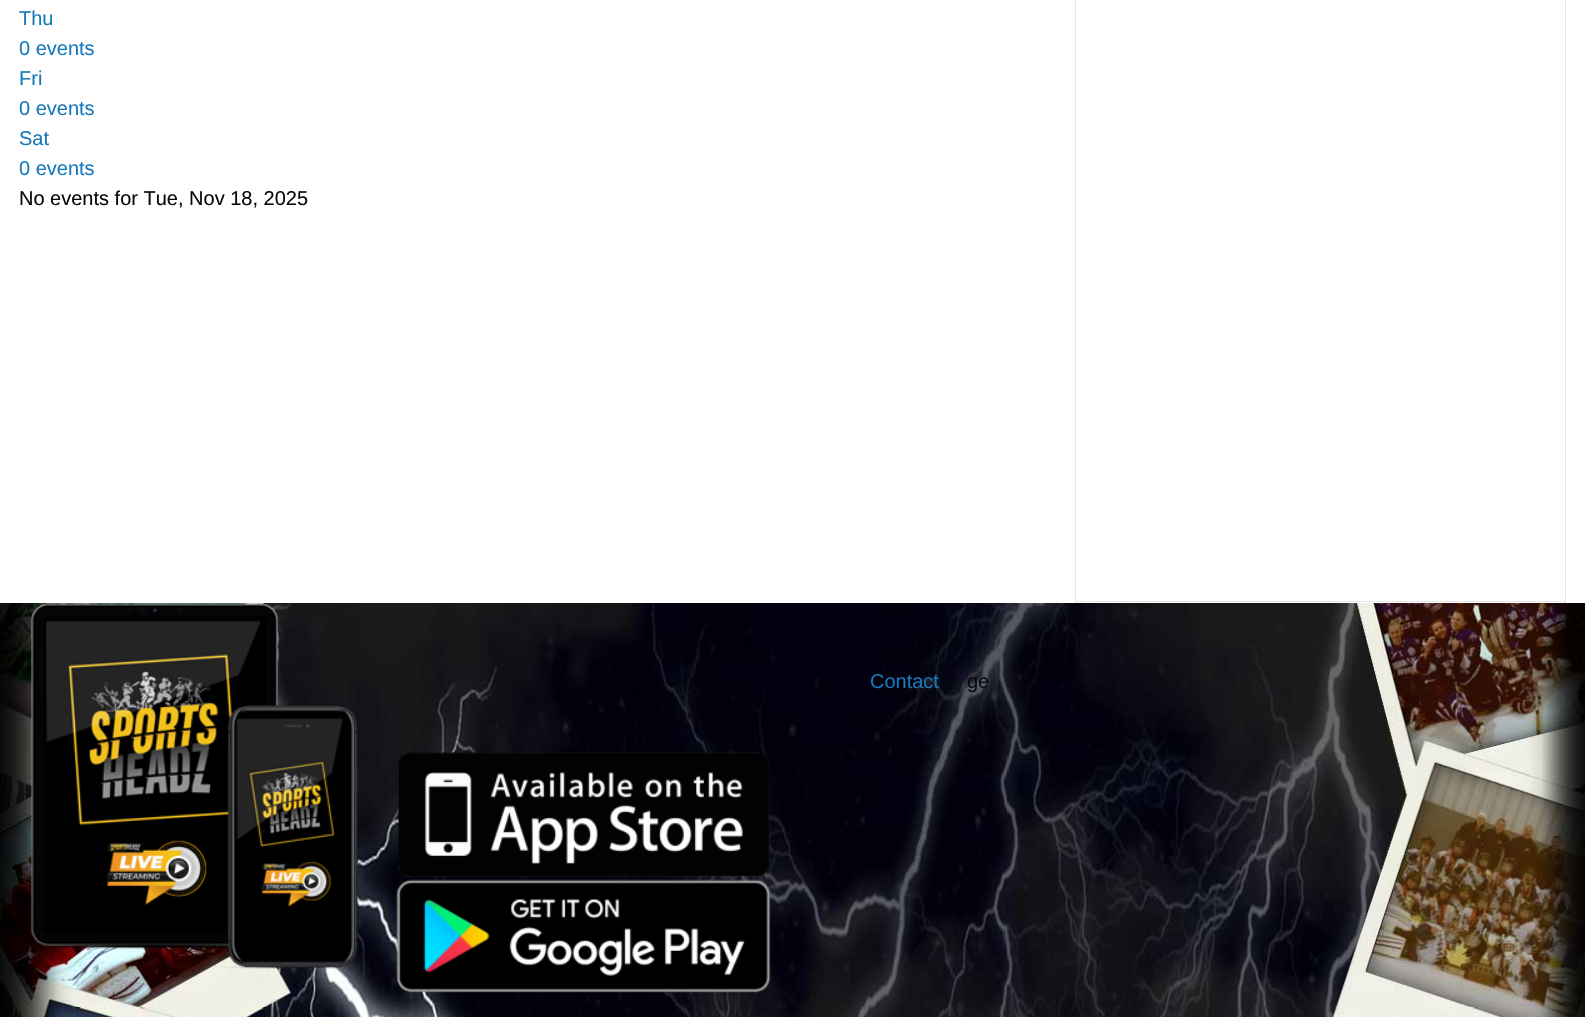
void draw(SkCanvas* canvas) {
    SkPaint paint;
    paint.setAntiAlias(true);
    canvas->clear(0xFFFFFFFF);
    canvas->drawImageRect(SkImages::DeferredFromEncodedData(SkData::MakeFromFileName("img1.png")), SkRect::MakeXYWH(0, 603, 1585, 414), SkSamplingOptions());
    SkFont font1(fontMgr->matchFamilyStyle("Liberation Sans", SkFontStyle::Normal()), 20);
    font1.setSubpixel(true);
    paint.setColor(0xFF1779BA);
    canvas->drawString("Thu", 19, 25, font1, paint);
    canvas->drawString("0 events", 19, 55, font1, paint);
    canvas->drawString("Fri", 19, 85, font1, paint);
    canvas->drawString("0 events", 19, 115, font1, paint);
    canvas->drawString("Sat", 19, 145, font1, paint);
    canvas->drawString("0 events", 19, 175, font1, paint);
    paint.setColor(0xFF0A0A0A);
    canvas->drawString("No events for Tue, Nov 18, 2025", 19, 205, font1, paint);
    paint.setColor(0xFFE6E6E6);
    canvas->drawRect(SkRect::MakeXYWH(1565, 0, 1, 603), paint);
    canvas->drawRect(SkRect::MakeXYWH(1075, 601, 491, 1), paint);
    canvas->drawRect(SkRect::MakeXYWH(1075, 0, 1, 603), paint);
    canvas->drawImageRect(SkImages::DeferredFromEncodedData(SkData::MakeFromFileName("img2.png")), SkRect::MakeXYWH(31, 602, 328, 367), SkSamplingOptions());
    canvas->drawImageRect(SkImages::DeferredFromEncodedData(SkData::MakeFromFileName("img3.png")), SkRect::MakeXYWH(397, 751, 373, 127), SkSamplingOptions());
    canvas->drawImageRect(SkImages::DeferredFromEncodedData(SkData::MakeFromFileName("img4.png")), SkRect::MakeXYWH(396, 879, 375, 114), SkSamplingOptions());
    paint.setColor(0xFF1779BA);
    canvas->drawString("Contact", 870, 688, font1, paint);
    paint.setColor(0xFF0A0A0A);
    canvas->drawString("ge", 967, 688, font1, paint);
}
